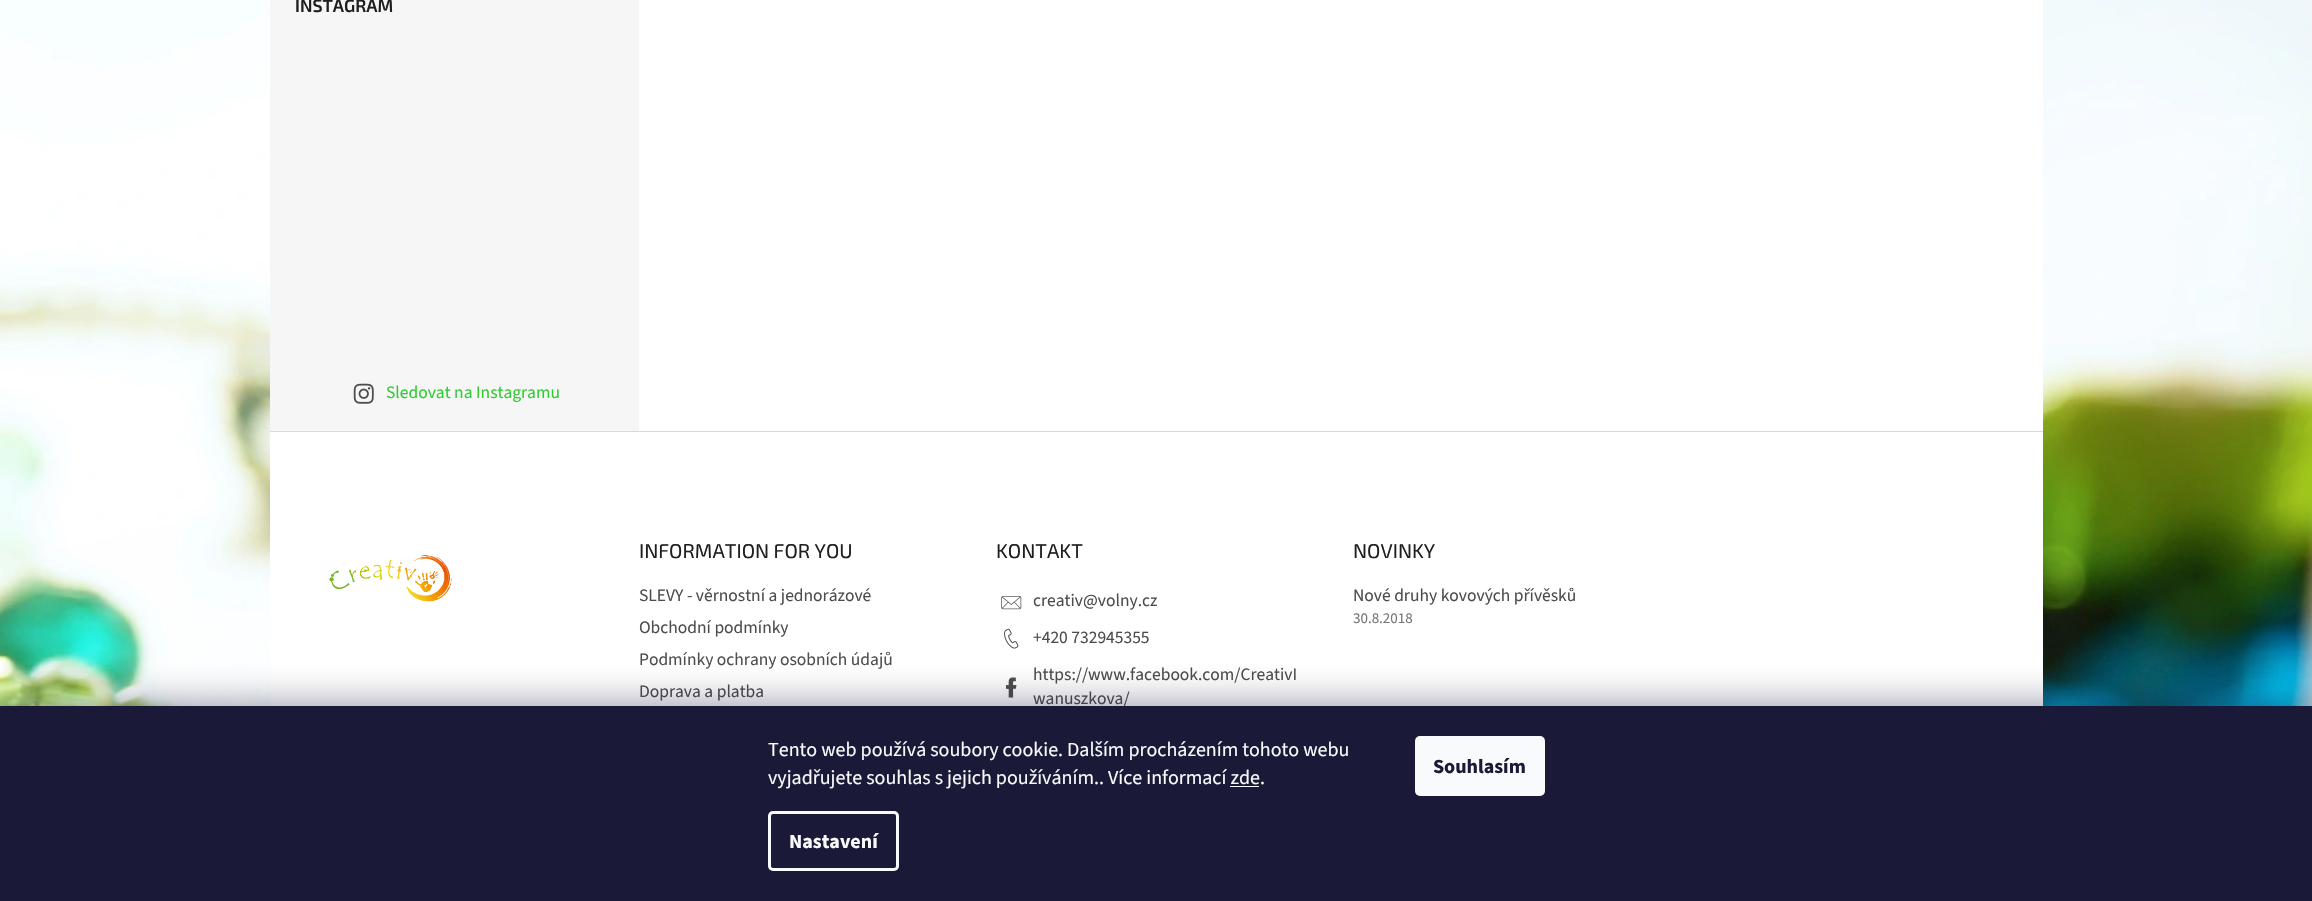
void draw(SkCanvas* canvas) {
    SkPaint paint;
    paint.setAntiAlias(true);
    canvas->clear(0xFFFFFFFF);
    canvas->drawImageRect(SkImages::DeferredFromEncodedData(SkData::MakeFromFileName("img1.png")), SkRect::MakeXYWH(0, 0, 2312, 706), SkSamplingOptions());
    paint.setColor(0xFFFFFFFF);
    canvas->drawRect(SkRect::MakeXYWH(639, 0, 1404, 431), paint);
    paint.setColor(0xFFF6F6F6);
    canvas->drawRect(SkRect::MakeXYWH(270, 0, 369, 431), paint);
    SkFont font1(fontMgr->matchFamilyStyle("Exo 2", SkFontStyle(600, SkFontStyle::kNormal_Width, SkFontStyle::kUpright_Slant)), 17.5f);
    font1.setSubpixel(true);
    paint.setColor(0xFF1F1F1F);
    canvas->drawString("INSTAGRAM", 295, 12, font1, paint);
    canvas->drawImageRect(SkImages::DeferredFromEncodedData(SkData::MakeFromFileName("img2.png")), SkRect::MakeXYWH(353, 383, 21, 21), SkSamplingOptions());
    SkFont font2(fontMgr->matchFamilyStyle("Source Sans 3", SkFontStyle::Normal()), 17.5f);
    font2.setSubpixel(true);
    paint.setColor(0xFF32CB32);
    canvas->drawString("Sledovat na Instagramu", 386, 398, font2, paint);
    paint.setColor(0xFFFFFFFF);
    canvas->drawRect(SkRect::MakeXYWH(270, 432, 1773, 274), paint);
    canvas->drawImageRect(SkImages::DeferredFromEncodedData(SkData::MakeFromFileName("img3.png")), SkRect::MakeXYWH(329, 555, 123, 47), SkSamplingOptions());
    paint.setColor(0xFFDADADA);
    canvas->drawRect(SkRect::MakeXYWH(270, 431, 1773, 1), paint);
    SkFont font3(fontMgr->matchFamilyStyle("Exo 2", SkFontStyle::Normal()), 20);
    font3.setSubpixel(true);
    paint.setColor(0xFF1F1F1F);
    canvas->drawString("INFORMATION FOR YOU", 639, 558, font3, paint);
    paint.setColor(0xFF4D4D4D);
    canvas->drawString("SLEVY - věrnostní a jednorázové", 639, 601, font2, paint);
    canvas->drawString("Obchodní podmínky", 639, 633, font2, paint);
    canvas->drawString("Podmínky ochrany osobních údajů", 639, 665, font2, paint);
    canvas->drawString("Doprava a platba", 639, 697, font2, paint);
    paint.setColor(0xFF1F1F1F);
    canvas->drawString("KONTAKT", 996, 558, font3, paint);
    canvas->drawImageRect(SkImages::DeferredFromEncodedData(SkData::MakeFromFileName("img4.png")), SkRect::MakeXYWH(1001, 596, 21, 14), SkSamplingOptions());
    paint.setColor(0xFF4D4D4D);
    canvas->drawString("creativ@volny.cz", 1033, 606, font2, paint);
    canvas->drawImageRect(SkImages::DeferredFromEncodedData(SkData::MakeFromFileName("img5.png")), SkRect::MakeXYWH(1004, 628, 15, 21), SkSamplingOptions());
    canvas->drawString("+420 732945355", 1033, 643, font2, paint);
    canvas->drawImageRect(SkImages::DeferredFromEncodedData(SkData::MakeFromFileName("img6.png")), SkRect::MakeXYWH(1005, 677, 12, 21), SkSamplingOptions());
    canvas->drawString("https://www.facebook.com/CreativI", 1033, 680, font2, paint);
    canvas->drawString("wanuszkova/", 1033, 704, font2, paint);
    paint.setColor(0xFF1F1F1F);
    canvas->drawString("NOVINKY", 1353, 558, font3, paint);
    paint.setColor(0xFF4D4D4D);
    canvas->drawString("Nové druhy kovových přívěsků", 1353, 601, font2, paint);
    SkFont font4(fontMgr->matchFamilyStyle("Source Sans 3", SkFontStyle::Normal()), 15);
    font4.setSubpixel(true);
    paint.setColor(0xFF767676);
    canvas->drawString("30.8.2018", 1353, 623, font4, paint);
    paint.setColor(0x801B1939);
    paint.setMaskFilter(SkMaskFilter::MakeBlur(kNormal_SkBlurStyle, 19));
    canvas->drawRect(SkRect::MakeXYWH(0, 706, 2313, 195), paint);
    paint.setMaskFilter(nullptr);
    paint.setColor(0xFF1A1937);
    canvas->drawRect(SkRect::MakeXYWH(0, 706, 2312, 195), paint);
    SkFont font5(fontMgr->matchFamilyStyle("Source Sans 3", SkFontStyle::Normal()), 20);
    font5.setSubpixel(true);
    paint.setColor(0xFFF8FAFB);
    canvas->drawString("Tento web používá soubory cookie. Dalším procházením tohoto webu", 768, 756, font5, paint);
    canvas->drawString("vyjadřujete souhlas s jejich používáním.. Více informací zde.", 768, 784, font5, paint);
    canvas->drawRect(SkRect::MakeXYWH(1230, 786, 29, 1), paint);
    paint.setStyle(SkPaint::kStroke_Style);
    paint.setStrokeWidth(3);
    canvas->drawRoundRect(SkRect::MakeXYWH(769.5f, 812.5f, 128, 57), 3.5f, 3.5f, paint);
    SkFont font6(fontMgr->matchFamilyStyle("Source Sans 3", SkFontStyle::Bold()), 20);
    font6.setSubpixel(true);
    paint.setStyle(SkPaint::kFill_Style);
    canvas->drawString("Nastavení", 789, 848, font6, paint);
    canvas->drawRoundRect(SkRect::MakeXYWH(1415, 736, 130, 60), 5, 5, paint);
    paint.setColor(0xFF1A1937);
    canvas->drawString("Souhlasím", 1433, 773, font6, paint);
}
